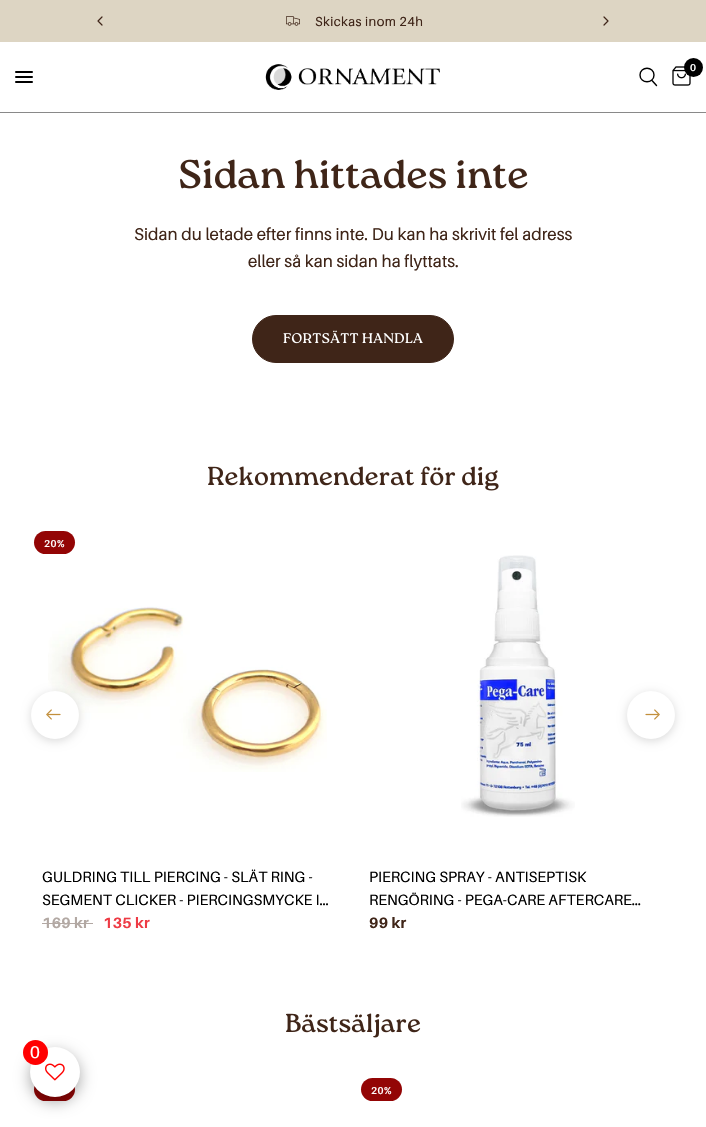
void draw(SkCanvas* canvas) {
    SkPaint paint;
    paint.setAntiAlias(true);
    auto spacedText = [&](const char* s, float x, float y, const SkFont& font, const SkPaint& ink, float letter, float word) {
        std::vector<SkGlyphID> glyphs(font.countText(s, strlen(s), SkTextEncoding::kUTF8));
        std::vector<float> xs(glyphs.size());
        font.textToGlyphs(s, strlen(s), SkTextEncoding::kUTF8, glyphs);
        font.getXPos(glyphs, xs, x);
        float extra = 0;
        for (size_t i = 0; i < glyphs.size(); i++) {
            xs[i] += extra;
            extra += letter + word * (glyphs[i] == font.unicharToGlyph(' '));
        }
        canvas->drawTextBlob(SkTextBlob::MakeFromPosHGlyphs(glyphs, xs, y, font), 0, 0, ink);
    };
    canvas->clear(0xFFFFFFFF);
    paint.setColor(0xFF930505);
    canvas->drawRoundRect(SkRect::MakeXYWH(34, 1078, 41, 23), 11.5f, 11.5f, paint);
    paint.setColor(0x59000000);
    paint.setMaskFilter(SkMaskFilter::MakeBlur(kNormal_SkBlurStyle, 7.5f));
    canvas->drawRoundRect(SkRect::MakeXYWH(30, 1052, 50, 50), 25, 25, paint);
    paint.setMaskFilter(nullptr);
    paint.setColor(0xFFFFFFFF);
    canvas->drawCircle(55, 1072, 25, paint);
    canvas->drawImageRect(SkImages::DeferredFromEncodedData(SkData::MakeFromFileName("img1.png")), SkRect::MakeXYWH(45, 1063, 20, 18), SkSamplingOptions());
    paint.setColor(0xFFFF0001);
    canvas->drawCircle(35.5f, 1052.5f, 12.5f, paint);
    SkFont font1(fontMgr->matchFamilyStyle("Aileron", SkFontStyle::Normal()), 17);
    font1.setSubpixel(true);
    paint.setColor(0xFFFFFFFF);
    canvas->drawString("0", 30, 1058, font1, paint);
    paint.setColor(0xFFDDD5C3);
    canvas->drawRect(SkRect::MakeXYWH(0, 0, 706, 42), paint);
    paint.setStyle(SkPaint::kStroke_Style);
    paint.setStrokeWidth(1.2f);
    paint.setStrokeCap(SkPaint::kRound_Cap);
    paint.setStrokeJoin(SkPaint::kRound_Join);
    paint.setColor(0xFF3F2518);
    canvas->drawPath(SkPathBuilder().moveTo(102, 17).lineTo(98, 21).lineTo(102, 25).detach(), paint);
    canvas->drawImageRect(SkImages::DeferredFromEncodedData(SkData::MakeFromFileName("img2.png")), SkRect::MakeXYWH(286, 16, 14, 10), SkSamplingOptions());
    SkFont font2(fontMgr->matchFamilyStyle("Aileron", SkFontStyle::Normal()), 13);
    font2.setSubpixel(true);
    paint.setStyle(SkPaint::kFill_Style);
    spacedText("Skickas inom 24h", 315, 26, font2, paint, 0.4f, 0);
    paint.setStyle(SkPaint::kStroke_Style);
    canvas->drawPath(SkPathBuilder().moveTo(604, 17).lineTo(608, 21).lineTo(604, 25).detach(), paint);
    paint.setStyle(SkPaint::kFill_Style);
    paint.setColor(0xFF898989);
    canvas->drawRect(SkRect::MakeXYWH(0, 112, 706, 1), paint);
    paint.setColor(0xFF000000);
    canvas->drawRoundRect(SkRect::MakeXYWH(15, 71, 18, 2), 1, 1, paint);
    canvas->drawRoundRect(SkRect::MakeXYWH(15, 76, 18, 2), 1, 1, paint);
    canvas->drawRoundRect(SkRect::MakeXYWH(15, 81, 18, 2), 1, 1, paint);
    canvas->drawImageRect(SkImages::DeferredFromEncodedData(SkData::MakeFromFileName("img3.png")), SkRect::MakeXYWH(265, 64, 175, 26), SkSamplingOptions());
    paint.setStyle(SkPaint::kStroke_Style);
    paint.setStrokeWidth(1.4f);
    canvas->drawPath(SkPathBuilder().moveTo(652, 80.5f).lineTo(656.5f, 85.5f).moveTo(654, 75).cubicTo(654, 84, 640, 84, 640, 75).cubicTo(640, 66, 654, 66, 654, 75).close().detach(), paint);
    canvas->drawImageRect(SkImages::DeferredFromEncodedData(SkData::MakeFromFileName("img4.png")), SkRect::MakeXYWH(672, 66, 19, 20), SkSamplingOptions());
    paint.setStyle(SkPaint::kFill_Style);
    canvas->drawCircle(693.5f, 67.5f, 9.5f, paint);
    SkFont font3(fontMgr->matchFamilyStyle("Aileron", SkFontStyle(600, SkFontStyle::kNormal_Width, SkFontStyle::kUpright_Slant)), 10);
    font3.setSubpixel(true);
    paint.setColor(0xFFFFFFFF);
    canvas->drawString("0", 690, 71, font3, paint);
    canvas->drawImageRect(SkImages::DeferredFromEncodedData(SkData::MakeFromFileName("img5.png")), SkRect::MakeXYWH(180, 159, 348, 30), SkSamplingOptions());
    paint.setColor(0xFF3F2518);
    canvas->drawString("Sidan du letade efter finns inte. Du kan ha skrivit fel adress", 134, 240, font1, paint);
    canvas->drawString("eller så kan sidan ha flyttats.", 248, 267, font1, paint);
    canvas->drawRoundRect(SkRect::MakeXYWH(252.5f, 315.5f, 201, 47), 23.5f, 23.5f, paint);
    paint.setStyle(SkPaint::kStroke_Style);
    paint.setStrokeWidth(1);
    paint.setStrokeCap(SkPaint::kButt_Cap);
    paint.setStrokeJoin(SkPaint::kMiter_Join);
    canvas->drawRoundRect(SkRect::MakeXYWH(252.5f, 315.5f, 201, 47), 23.5f, 23.5f, paint);
    canvas->drawImageRect(SkImages::DeferredFromEncodedData(SkData::MakeFromFileName("img6.png")), SkRect::MakeXYWH(283, 330, 140, 14), SkSamplingOptions());
    canvas->drawImageRect(SkImages::DeferredFromEncodedData(SkData::MakeFromFileName("img7.png")), SkRect::MakeXYWH(208, 466, 291, 25), SkSamplingOptions());
    paint.setStyle(SkPaint::kFill_Style);
    paint.setColor(0xFF930505);
    canvas->drawRoundRect(SkRect::MakeXYWH(34, 531, 41, 23), 11.5f, 11.5f, paint);
    paint.setColor(0xFFFFFFFF);
    spacedText("20%", 44, 547, font3, paint, 0.5f, 0);
    canvas->drawImageRect(SkImages::DeferredFromEncodedData(SkData::MakeFromFileName("img8.png")), SkRect::MakeXYWH(48, 606, 279, 166), SkSamplingOptions());
    SkFont font4(fontMgr->matchFamilyStyle("Aileron", SkFontStyle::Normal()), 15);
    font4.setSubpixel(true);
    paint.setColor(0xFF000000);
    canvas->drawString("GULDRING TILL PIERCING - SLÄT RING -", 42, 882, font4, paint);
    canvas->drawString("SEGMENT CLICKER - PIERCINGSMYCKE I…", 42, 905, font4, paint);
    SkFont font5(fontMgr->matchFamilyStyle("Aileron", SkFontStyle::Bold()), 15);
    font5.setSubpixel(true);
    paint.setColor(0xFFB2A8A3);
    spacedText("169 kr", 42, 928, font5, paint, 0.25f, 0);
    canvas->drawRect(SkRect::MakeXYWH(42, 923, 51, 1), paint);
    paint.setColor(0xFFEE3B45);
    spacedText("135 kr", 103, 928, font5, paint, 0.25f, 0);
    canvas->drawImageRect(SkImages::DeferredFromEncodedData(SkData::MakeFromFileName("img9.png")), SkRect::MakeXYWH(461, 555, 114, 262), SkSamplingOptions());
    paint.setColor(0xFF000000);
    canvas->drawString("PIERCING SPRAY - ANTISEPTISK", 369, 882, font4, paint);
    canvas->drawString("RENGÖRING - PEGA-CARE AFTERCARE…", 369, 905, font4, paint);
    paint.setColor(0xFF3F2518);
    spacedText("99 kr", 369, 928, font5, paint, 0.25f, 0);
    paint.setColor(0x26000000);
    paint.setMaskFilter(SkMaskFilter::MakeBlur(kNormal_SkBlurStyle, 5));
    canvas->drawRoundRect(SkRect::MakeXYWH(31, 693, 48, 48), 24, 24, paint);
    paint.setMaskFilter(nullptr);
    paint.setColor(0xFFFFFFFF);
    canvas->drawCircle(55, 715, 24, paint);
    canvas->drawImageRect(SkImages::DeferredFromEncodedData(SkData::MakeFromFileName("img10.png")), SkRect::MakeXYWH(46, 709, 15, 11), SkSamplingOptions());
    paint.setColor(0x26000000);
    paint.setMaskFilter(SkMaskFilter::MakeBlur(kNormal_SkBlurStyle, 5));
    canvas->drawRoundRect(SkRect::MakeXYWH(627, 693, 48, 48), 24, 24, paint);
    paint.setMaskFilter(nullptr);
    paint.setColor(0xFFFFFFFF);
    canvas->drawCircle(651, 715, 24, paint);
    canvas->drawImageRect(SkImages::DeferredFromEncodedData(SkData::MakeFromFileName("img11.png")), SkRect::MakeXYWH(645, 709, 15, 11), SkSamplingOptions());
    canvas->drawImageRect(SkImages::DeferredFromEncodedData(SkData::MakeFromFileName("img12.png")), SkRect::MakeXYWH(286, 1013, 135, 25), SkSamplingOptions());
    paint.setColor(0xFF930505);
    canvas->drawRoundRect(SkRect::MakeXYWH(361, 1078, 41, 23), 11.5f, 11.5f, paint);
    paint.setColor(0xFFFFFFFF);
    spacedText("20%", 371, 1094, font3, paint, 0.5f, 0);
}
